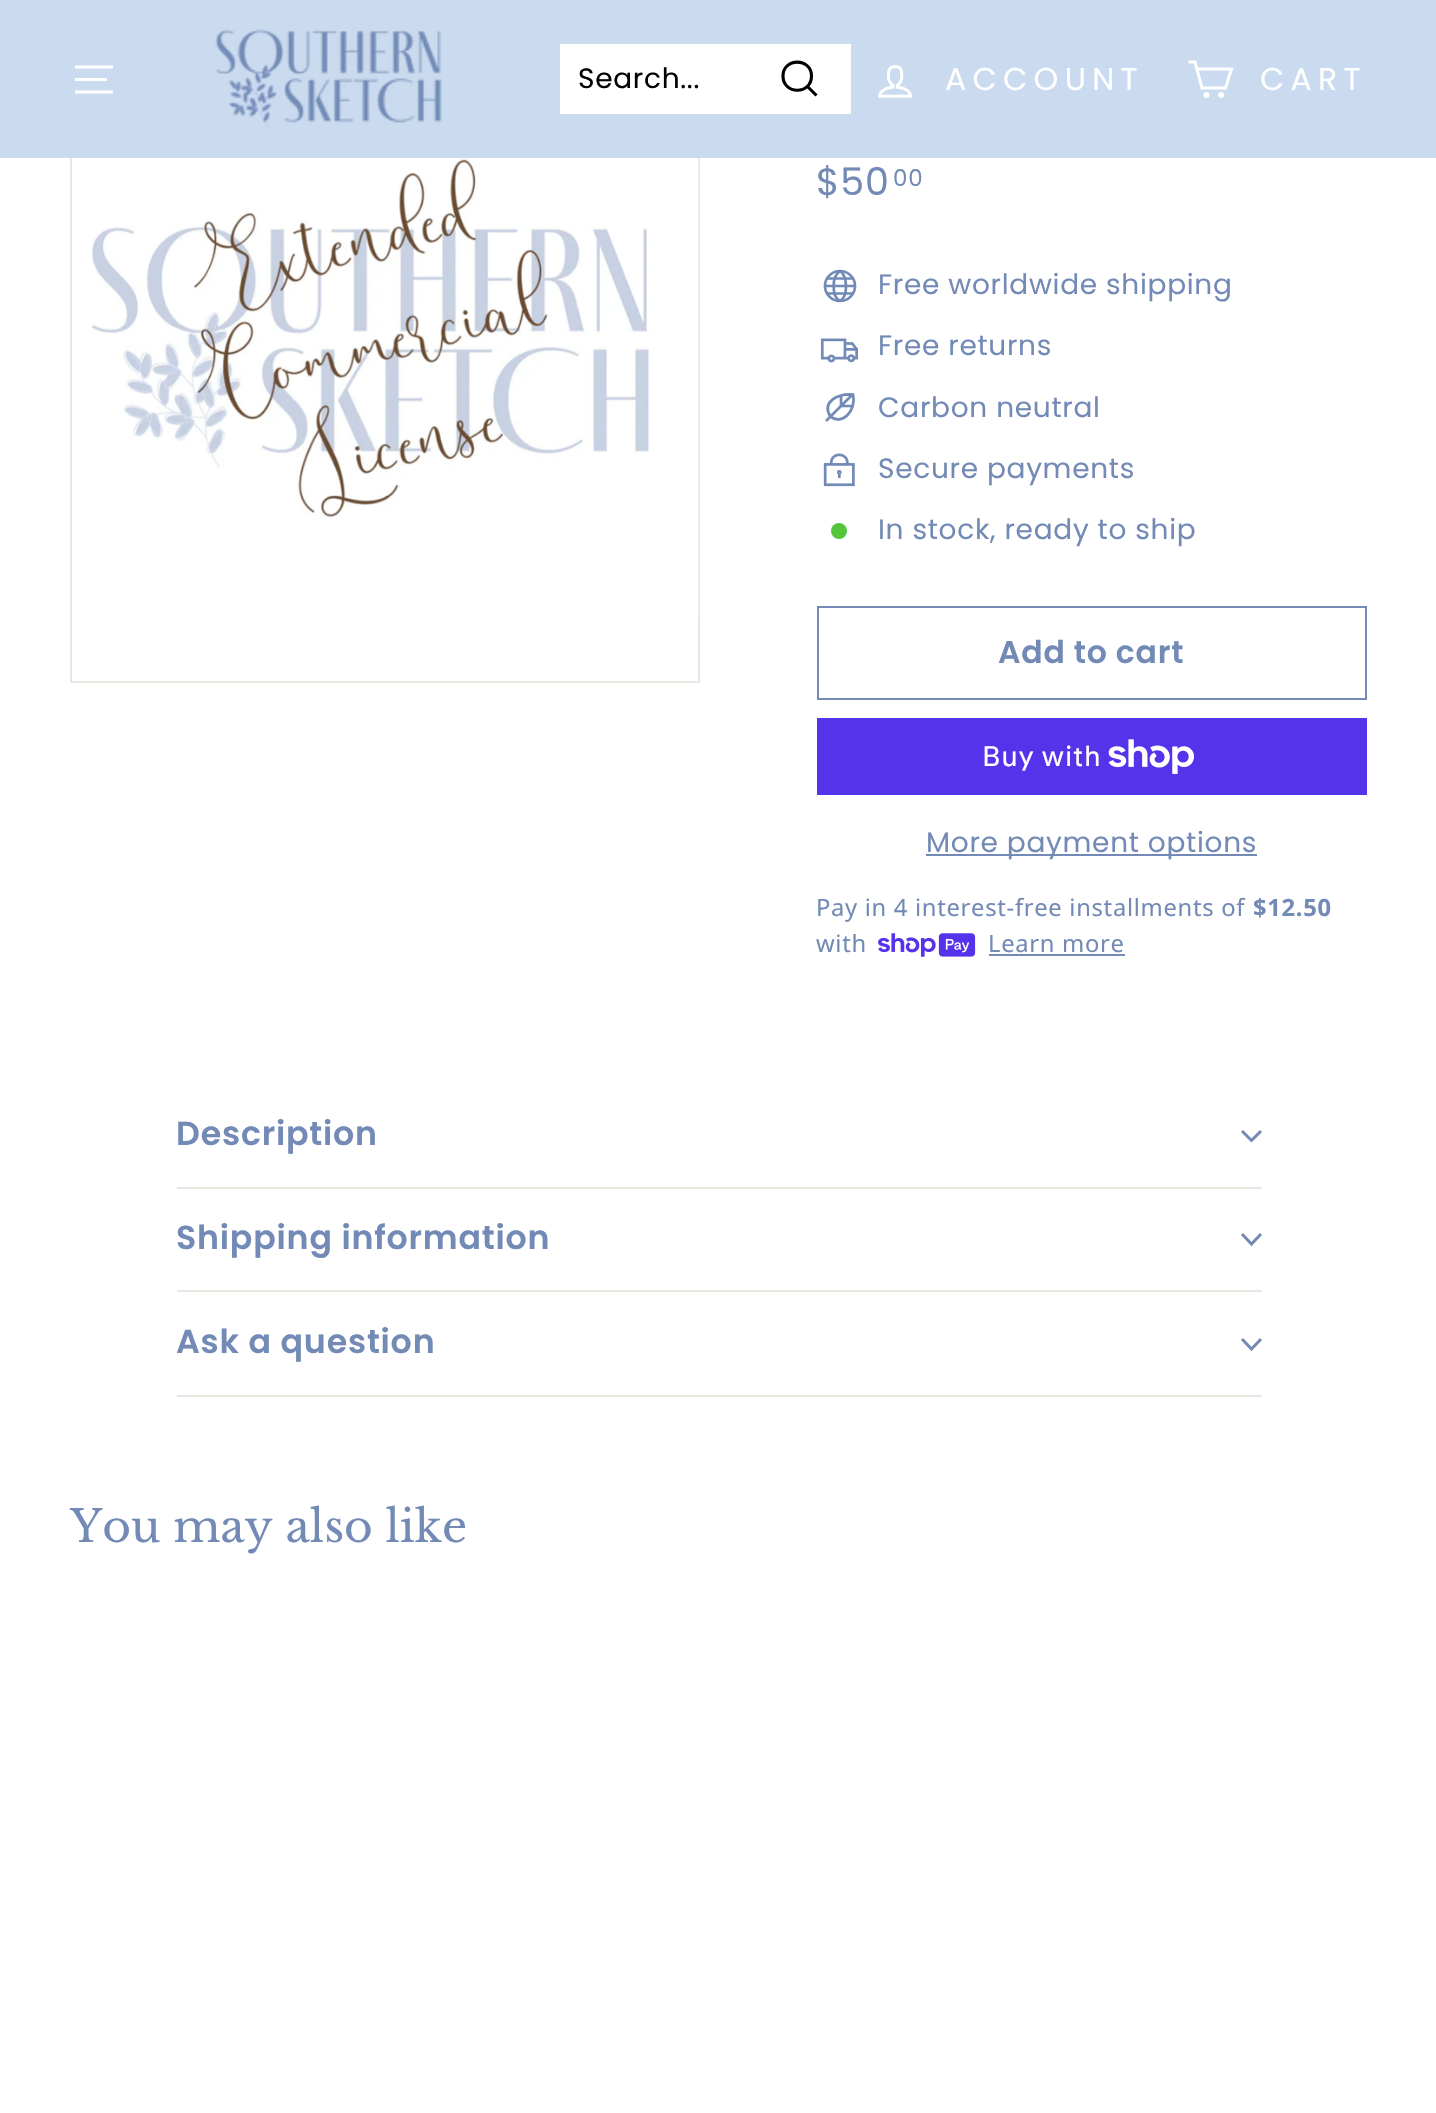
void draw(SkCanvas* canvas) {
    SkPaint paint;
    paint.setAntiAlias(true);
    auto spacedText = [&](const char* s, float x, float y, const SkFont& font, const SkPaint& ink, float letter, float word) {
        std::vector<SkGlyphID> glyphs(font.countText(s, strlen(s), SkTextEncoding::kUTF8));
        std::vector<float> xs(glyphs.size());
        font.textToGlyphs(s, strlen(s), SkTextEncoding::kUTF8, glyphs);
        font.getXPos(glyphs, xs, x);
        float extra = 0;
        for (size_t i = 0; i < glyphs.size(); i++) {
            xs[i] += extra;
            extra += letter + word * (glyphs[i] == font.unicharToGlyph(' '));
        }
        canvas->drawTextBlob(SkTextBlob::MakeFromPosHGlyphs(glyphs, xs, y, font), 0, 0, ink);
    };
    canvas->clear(0xFFFFFFFF);
    paint.setStyle(SkPaint::kStroke_Style);
    paint.setStrokeWidth(2);
    paint.setColor(0xFFE8E8E1);
    canvas->drawRect(SkRect::MakeXYWH(71, 54, 628, 628), paint);
    paint.setStyle(SkPaint::kFill_Style);
    paint.setColor(0xFFCBDBEF);
    canvas->drawRect(SkRect::MakeXYWH(0, 0, 1436, 158), paint);
    paint.setStyle(SkPaint::kStroke_Style);
    paint.setStrokeWidth(3);
    paint.setColor(0xFFFFFFFF);
    canvas->drawPath(SkPathBuilder().moveTo(75, 67).lineTo(113, 67).detach(), paint);
    paint.setStyle(SkPaint::kFill_Style);
    canvas->drawRect(SkRect::MakeXYWH(75, 78, 32, 3), paint);
    paint.setStyle(SkPaint::kStroke_Style);
    canvas->drawPath(SkPathBuilder().moveTo(75, 92).lineTo(113, 92).detach(), paint);
    canvas->drawImageRect(SkImages::DeferredFromEncodedData(SkData::MakeFromFileName("img1.png")), SkRect::MakeXYWH(215, 29, 227, 99), SkSamplingOptions());
    paint.setStyle(SkPaint::kFill_Style);
    canvas->drawRect(SkRect::MakeXYWH(560, 44, 291, 70), paint);
    SkFont font1(fontMgr->matchFamilyStyle("Poppins", SkFontStyle::Normal()), 28);
    font1.setSubpixel(true);
    paint.setColor(0xFF000000);
    spacedText("Search...", 578, 88, font1, paint, 0.7f, 0);
    paint.setStyle(SkPaint::kStroke_Style);
    paint.setStrokeWidth(3.1f);
    canvas->drawPath(SkPathBuilder().moveTo(811.5f, 76).cubicTo(811.5f, 95, 783, 95, 783, 76).cubicTo(783, 57.5f, 811.5f, 57.5f, 811.5f, 76).close().moveTo(816.5f, 95.5f).lineTo(807.5f, 86.5f).detach(), paint);
    canvas->drawImageRect(SkImages::DeferredFromEncodedData(SkData::MakeFromFileName("img2.png")), SkRect::MakeXYWH(878, 65, 34, 33), SkSamplingOptions());
    SkFont font2(fontMgr->matchFamilyStyle("Poppins", SkFontStyle::Normal()), 31.5f);
    font2.setSubpixel(true);
    paint.setStyle(SkPaint::kFill_Style);
    paint.setColor(0xFFFFFFFF);
    spacedText("ACCOUNT", 945, 90, font2, paint, 6.25f, 0);
    paint.setStyle(SkPaint::kStroke_Style);
    paint.setStrokeWidth(3);
    canvas->drawPath(SkPathBuilder().moveTo(1197, 69).lineTo(1231.5f, 69).lineTo(1225.5f, 88).lineTo(1202, 88).lineTo(1195, 62).lineTo(1188.5f, 62).detach(), paint);
    canvas->drawCircle(1206.4f, 95.1f, 1.5f, paint);
    canvas->drawCircle(1221.2f, 95.1f, 1.5f, paint);
    paint.setStyle(SkPaint::kFill_Style);
    spacedText("CART", 1260, 90, font2, paint, 6.25f, 0);
    canvas->drawImageRect(SkImages::DeferredFromEncodedData(SkData::MakeFromFileName("img3.png")), SkRect::MakeXYWH(91, 158, 608, 459), SkSamplingOptions());
    SkFont font3(fontMgr->matchFamilyStyle("Poppins", SkFontStyle::Normal()), 38);
    font3.setSubpixel(true);
    paint.setColor(0xFF728AB5);
    spacedText("$50", 816, 195, font3, paint, 0.7f, 0);
    SkFont font4(fontMgr->matchFamilyStyle("Poppins", SkFontStyle::Normal()), 23);
    font4.setSubpixel(true);
    spacedText("00", 893, 186, font4, paint, 0.7f, 0);
    paint.setStyle(SkPaint::kStroke_Style);
    paint.setStrokeWidth(2.7f);
    canvas->drawCircle(840, 286, 15, paint);
    canvas->drawPath(SkPathBuilder().moveTo(827, 278.5f).lineTo(853, 278.5f).moveTo(825, 286).lineTo(855, 286).moveTo(827, 293.5f).lineTo(853, 293.5f).moveTo(840, 271).cubicTo(831.5f, 276.5f, 831.5f, 296.5f, 840, 301).moveTo(840, 271).cubicTo(848, 276.5f, 848, 296.5f, 840, 301).detach(), paint);
    paint.setStyle(SkPaint::kFill_Style);
    spacedText("Free worldwide shipping", 878, 294, font1, paint, 0.7f, 0);
    canvas->drawImageRect(SkImages::DeferredFromEncodedData(SkData::MakeFromFileName("img4.png")), SkRect::MakeXYWH(820, 338, 38, 25), SkSamplingOptions());
    spacedText("Free returns", 878, 355, font1, paint, 0.7f, 0);
    paint.setStyle(SkPaint::kStroke_Style);
    canvas->drawPath(SkPathBuilder().moveTo(852, 395).lineTo(826, 421).moveTo(841, 395.5f).lineTo(841, 406).lineTo(852, 406).moveTo(853, 394.5f).cubicTo(857, 410.5f, 841.5f, 426.5f, 830, 416).cubicTo(822, 402, 837, 393.5f, 853, 394.5f).close().detach(), paint);
    paint.setStyle(SkPaint::kFill_Style);
    spacedText("Carbon neutral", 878, 417, font1, paint, 0.7f, 0);
    canvas->drawImageRect(SkImages::DeferredFromEncodedData(SkData::MakeFromFileName("img5.png")), SkRect::MakeXYWH(823, 453, 32, 34), SkSamplingOptions());
    spacedText("Secure payments", 878, 478, font1, paint, 0.7f, 0);
    paint.setColor(0xFF54C63A);
    canvas->drawCircle(839, 531, 8, paint);
    paint.setColor(0xFF728AB5);
    spacedText("In stock, ready to ship", 878, 539, font1, paint, 0.7f, 0);
    paint.setStyle(SkPaint::kStroke_Style);
    paint.setStrokeWidth(2);
    canvas->drawRect(SkRect::MakeXYWH(818, 607, 548, 92), paint);
    SkFont font5(fontMgr->matchFamilyStyle("Poppins", SkFontStyle(600, SkFontStyle::kNormal_Width, SkFontStyle::kUpright_Slant)), 31.5f);
    font5.setSubpixel(true);
    paint.setStyle(SkPaint::kFill_Style);
    spacedText("Add to cart", 998, 663, font5, paint, 0.75f, 0);
    paint.setColor(0xFF5433EB);
    canvas->drawRect(SkRect::MakeXYWH(817, 718, 550, 77), paint);
    SkFont font6(fontMgr->matchFamilyStyle("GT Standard", SkFontStyle::Normal()), 28);
    font6.setSubpixel(true);
    paint.setColor(0xFFFFFFFF);
    spacedText("Buy with", 982, 766, font6, paint, 0.7f, 0);
    canvas->drawImageRect(SkImages::DeferredFromEncodedData(SkData::MakeFromFileName("img6.png")), SkRect::MakeXYWH(1108, 739, 86, 35), SkSamplingOptions());
    paint.setColor(0xFF728AB5);
    canvas->drawRect(SkRect::MakeXYWH(926, 854, 331, 2), paint);
    spacedText("More payment options", 926, 852, font1, paint, 0.7f, 0);
    SkFont font7(fontMgr->matchFamilyStyle("Noto Sans", SkFontStyle::Normal()), 23.75f);
    font7.setSubpixel(true);
    spacedText("Pay in 4 interest-free installments of", 816, 916, font7, paint, 0.7f, 0);
    SkFont font8(fontMgr->matchFamilyStyle("Noto Sans", SkFontStyle::Bold()), 23.75f);
    font8.setSubpixel(true);
    spacedText("$12.50", 1253, 916, font8, paint, 0.7f, 0);
    spacedText("with", 816, 952, font7, paint, 0.7f, 0);
    canvas->drawImageRect(SkImages::DeferredFromEncodedData(SkData::MakeFromFileName("img7.png")), SkRect::MakeXYWH(878, 933, 98, 24), SkSamplingOptions());
    spacedText("Learn more", 988, 952, font7, paint, 0.7f, 0);
    canvas->drawRect(SkRect::MakeXYWH(989, 954, 136, 2), paint);
    paint.setColor(0xFFE8E8E1);
    canvas->drawRect(SkRect::MakeXYWH(177, 1187, 1085, 2), paint);
    SkFont font9(fontMgr->matchFamilyStyle("Poppins", SkFontStyle(600, SkFontStyle::kNormal_Width, SkFontStyle::kUpright_Slant)), 33.25f);
    font9.setSubpixel(true);
    paint.setColor(0xFF728AB5);
    spacedText("Description", 176, 1145, font9, paint, 0.8f, 0);
    paint.setStyle(SkPaint::kStroke_Style);
    paint.setStrokeWidth(3);
    canvas->drawPath(SkPathBuilder().moveTo(1242, 1131).lineTo(1251.5f, 1140.5f).lineTo(1261, 1131).detach(), paint);
    paint.setStyle(SkPaint::kFill_Style);
    paint.setColor(0xFFE8E8E1);
    canvas->drawRect(SkRect::MakeXYWH(177, 1290, 1085, 2), paint);
    paint.setColor(0xFF728AB5);
    spacedText("Shipping information", 176, 1249, font9, paint, 0.8f, 0);
    paint.setStyle(SkPaint::kStroke_Style);
    canvas->drawPath(SkPathBuilder().moveTo(1242, 1234).lineTo(1251.5f, 1244).lineTo(1261, 1234).detach(), paint);
    paint.setStyle(SkPaint::kFill_Style);
    paint.setColor(0xFFE8E8E1);
    canvas->drawRect(SkRect::MakeXYWH(177, 1395, 1085, 2), paint);
    paint.setColor(0xFF728AB5);
    spacedText("Ask a question", 176, 1353, font9, paint, 0.8f, 0);
    paint.setStyle(SkPaint::kStroke_Style);
    canvas->drawPath(SkPathBuilder().moveTo(1242, 1339).lineTo(1251.5f, 1349).lineTo(1261, 1339).detach(), paint);
    SkFont font10(fontMgr->matchFamilyStyle("Libre Baskerville", SkFontStyle::Normal()), 44);
    font10.setSubpixel(true);
    paint.setStyle(SkPaint::kFill_Style);
    canvas->drawString("You may also like", 70, 1542, font10, paint);
}
